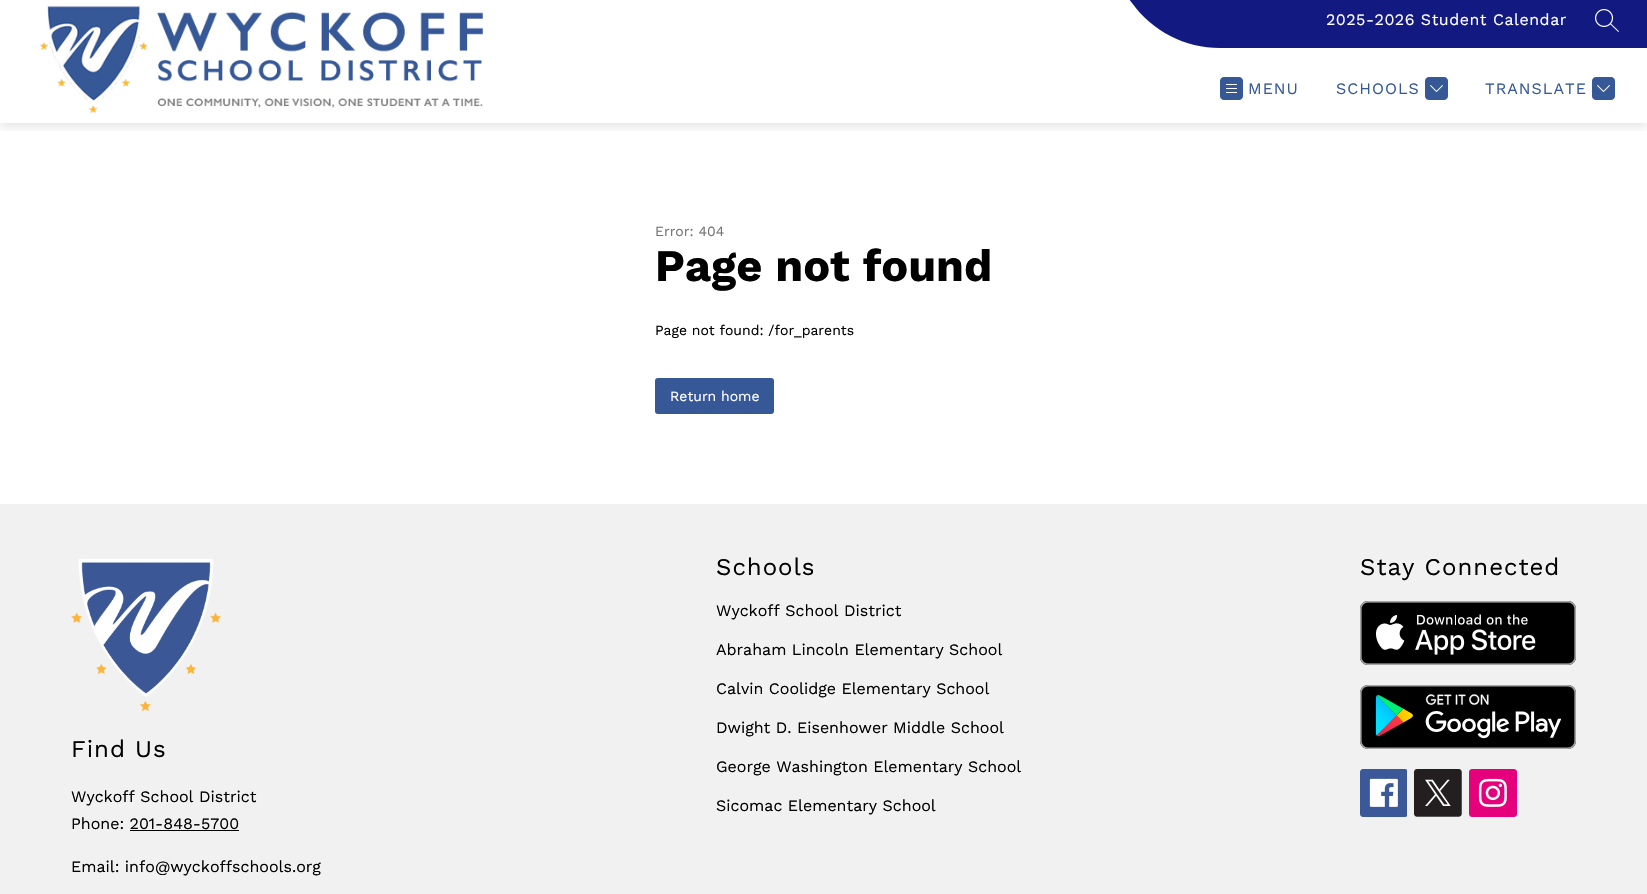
void draw(SkCanvas* canvas) {
    SkPaint paint;
    paint.setAntiAlias(true);
    auto spacedText = [&](const char* s, float x, float y, const SkFont& font, const SkPaint& ink, float letter, float word) {
        std::vector<SkGlyphID> glyphs(font.countText(s, strlen(s), SkTextEncoding::kUTF8));
        std::vector<float> xs(glyphs.size());
        font.textToGlyphs(s, strlen(s), SkTextEncoding::kUTF8, glyphs);
        font.getXPos(glyphs, xs, x);
        float extra = 0;
        for (size_t i = 0; i < glyphs.size(); i++) {
            xs[i] += extra;
            extra += letter + word * (glyphs[i] == font.unicharToGlyph(' '));
        }
        canvas->drawTextBlob(SkTextBlob::MakeFromPosHGlyphs(glyphs, xs, y, font), 0, 0, ink);
    };
    canvas->clear(0xFFFFFFFF);
    canvas->save();
    canvas->clipRect(SkRect::MakeXYWH(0, 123, 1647, 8));
    paint.setColor(0x1A000000);
    paint.setMaskFilter(SkMaskFilter::MakeBlur(kNormal_SkBlurStyle, 5));
    canvas->drawRect(SkRect::MakeXYWH(0, -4, 1647, 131), paint);
    paint.setMaskFilter(nullptr);
    canvas->restore();
    canvas->drawImageRect(SkImages::DeferredFromEncodedData(SkData::MakeFromFileName("img1.png")), SkRect::MakeXYWH(40, 3, 443, 110), SkSamplingOptions());
    paint.setColor(0xFF121981);
    canvas->drawRect(SkRect::MakeXYWH(1222, 0, 425, 48), paint);
    canvas->drawPath(SkPathBuilder().moveTo(1220, 48).lineTo(1222, 48).lineTo(1222, -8).lineTo(1126, -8).cubicTo(1125, -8, 1125, -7, 1125, -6).lineTo(1132, 3).cubicTo(1152, 31, 1185, 48, 1220, 48).close().detach(), paint);
    SkFont font1(fontMgr->matchFamilyStyle("Work Sans", SkFontStyle::Normal()), 16);
    font1.setSubpixel(true);
    paint.setColor(0xFFFFFFFF);
    spacedText("2025-2026 Student Calendar", 1326, 25, font1, paint, 0.5f, 0);
    canvas->drawImageRect(SkImages::DeferredFromEncodedData(SkData::MakeFromFileName("img2.png")), SkRect::MakeXYWH(1595, 9, 24, 23), SkSamplingOptions());
    canvas->drawImageRect(SkImages::DeferredFromEncodedData(SkData::MakeFromFileName("img3.png")), SkRect::MakeXYWH(1220, 77, 23, 23), SkSamplingOptions());
    paint.setColor(0xFF365897);
    spacedText("MENU", 1248, 94, font1, paint, 1, 0);
    spacedText("SCHOOLS", 1336, 94, font1, paint, 1, 0);
    canvas->drawImageRect(SkImages::DeferredFromEncodedData(SkData::MakeFromFileName("img4.png")), SkRect::MakeXYWH(1425, 77, 23, 23), SkSamplingOptions());
    spacedText("TRANSLATE", 1485, 94, font1, paint, 1, 0);
    canvas->drawImageRect(SkImages::DeferredFromEncodedData(SkData::MakeFromFileName("img4.png")), SkRect::MakeXYWH(1592, 77, 23, 23), SkSamplingOptions());
    SkFont font2(fontMgr->matchFamilyStyle("Work Sans", SkFontStyle::Normal()), 14);
    font2.setSubpixel(true);
    paint.setColor(0xFF747474);
    canvas->drawString("Error: 404", 655, 236, font2, paint);
    SkFont font3(fontMgr->matchFamilyStyle("Work Sans", SkFontStyle::Bold()), 45);
    font3.setSubpixel(true);
    paint.setColor(0xFF000000);
    canvas->drawString("Page not found", 655, 281, font3, paint);
    canvas->drawString("Page not found: /for_parents", 655, 335, font2, paint);
    paint.setColor(0xFF365897);
    canvas->drawRoundRect(SkRect::MakeXYWH(655, 378, 119, 36), 3, 3, paint);
    paint.setColor(0xFFFFFFFF);
    canvas->drawString("Return home", 670, 401, font2, paint);
    paint.setColor(0xFFF1F1F1);
    canvas->drawRect(SkRect::MakeXYWH(0, 504, 1647, 390), paint);
    SkFont font4(fontMgr->matchFamilyStyle("Work Sans", SkFontStyle::Normal()), 24);
    font4.setSubpixel(true);
    paint.setColor(0xFF000000);
    spacedText("Schools", 716, 575, font4, paint, 1, 0);
    canvas->drawString("Wyckoff School District", 716, 616, font1, paint);
    canvas->drawString("Abraham Lincoln Elementary School", 716, 655, font1, paint);
    canvas->drawString("Calvin Coolidge Elementary School", 716, 694, font1, paint);
    canvas->drawString("Dwight D. Eisenhower Middle School", 716, 733, font1, paint);
    canvas->drawString("George Washington Elementary School", 716, 772, font1, paint);
    canvas->drawString("Sicomac Elementary School", 716, 811, font1, paint);
    spacedText("Stay Connected", 1360, 575, font4, paint, 1, 0);
    canvas->drawImageRect(SkImages::DeferredFromEncodedData(SkData::MakeFromFileName("img5.png")), SkRect::MakeXYWH(1360, 601, 216, 64), SkSamplingOptions());
    canvas->drawImageRect(SkImages::DeferredFromEncodedData(SkData::MakeFromFileName("img6.png")), SkRect::MakeXYWH(1360, 685, 216, 64), SkSamplingOptions());
    canvas->drawImageRect(SkImages::DeferredFromEncodedData(SkData::MakeFromFileName("img7.png")), SkRect::MakeXYWH(1360, 769, 47, 48), SkSamplingOptions());
    canvas->drawImageRect(SkImages::DeferredFromEncodedData(SkData::MakeFromFileName("img8.png")), SkRect::MakeXYWH(1414, 769, 48, 48), SkSamplingOptions());
    canvas->drawImageRect(SkImages::DeferredFromEncodedData(SkData::MakeFromFileName("img9.png")), SkRect::MakeXYWH(1469, 769, 48, 48), SkSamplingOptions());
    canvas->drawImageRect(SkImages::DeferredFromEncodedData(SkData::MakeFromFileName("img10.png")), SkRect::MakeXYWH(71, 559, 150, 152), SkSamplingOptions());
    spacedText("Find Us", 71, 757, font4, paint, 1, 0);
    canvas->drawString("Wyckoff School District", 71, 802, font1, paint);
    canvas->drawString("Phone: 201-848-5700", 71, 829, font1, paint);
    canvas->drawRect(SkRect::MakeXYWH(130, 830, 109, 1), paint);
    canvas->drawString("Email: info@wyckoffschools.org", 71, 872, font1, paint);
}
